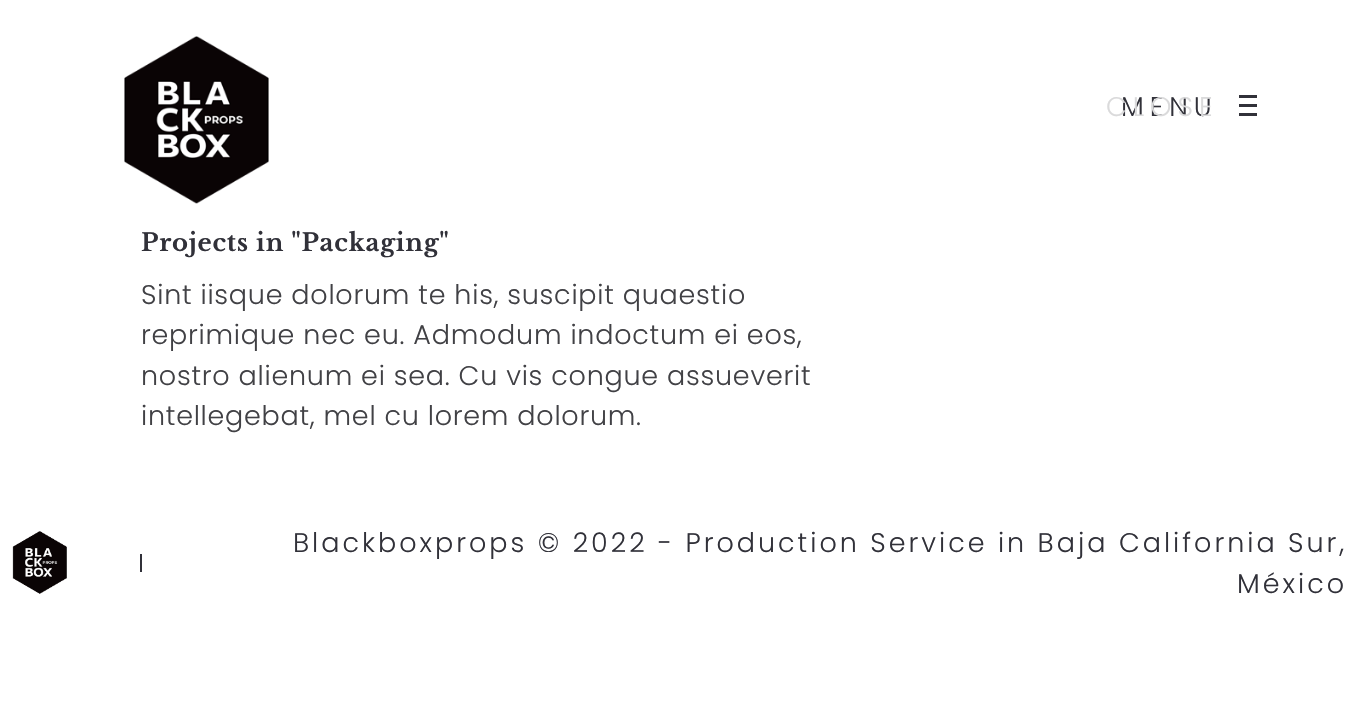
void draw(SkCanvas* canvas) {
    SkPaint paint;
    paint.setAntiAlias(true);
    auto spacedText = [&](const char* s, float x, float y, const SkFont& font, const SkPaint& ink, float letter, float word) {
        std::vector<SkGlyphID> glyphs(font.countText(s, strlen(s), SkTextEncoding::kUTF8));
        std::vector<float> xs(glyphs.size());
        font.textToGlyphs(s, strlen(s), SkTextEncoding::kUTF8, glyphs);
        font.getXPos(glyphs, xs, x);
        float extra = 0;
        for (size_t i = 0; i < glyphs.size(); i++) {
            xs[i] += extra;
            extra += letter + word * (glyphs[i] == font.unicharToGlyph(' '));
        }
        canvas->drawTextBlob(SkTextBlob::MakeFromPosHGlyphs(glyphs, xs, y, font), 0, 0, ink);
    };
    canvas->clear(0xFFFFFFFF);
    canvas->drawImageRect(SkImages::DeferredFromEncodedData(SkData::MakeFromFileName("img1.png")), SkRect::MakeXYWH(124, 36, 145, 168), SkSamplingOptions());
    SkFont font1(fontMgr->matchFamilyStyle("Poppins", SkFontStyle(300, SkFontStyle::kNormal_Width, SkFontStyle::kUpright_Slant)), 27);
    font1.setSubpixel(true);
    paint.setColor(0xFF313139);
    spacedText("MENU", 1121, 116, font1, paint, 6, 0);
    paint.setColor(0xFFDADADB);
    spacedText("CLOSE", 1106, 116, font1, paint, 6, 0);
    paint.setColor(0xFF313139);
    canvas->drawRect(SkRect::MakeXYWH(1239, 95, 18, 3), paint);
    canvas->drawRect(SkRect::MakeXYWH(1239, 104, 18, 3), paint);
    canvas->drawRect(SkRect::MakeXYWH(1239, 113, 18, 3), paint);
    SkFont font2(fontMgr->matchFamilyStyle("Libre Baskerville", SkFontStyle::Bold()), 24.25f);
    font2.setSubpixel(true);
    spacedText("Projects in \"Packaging\"", 141, 251, font2, paint, 0.75f, 0);
    paint.setColor(0xFF414145);
    spacedText("Sint iisque dolorum te his, suscipit quaestio", 141, 304, font1, paint, 0.75f, 0);
    spacedText("reprimique nec eu. Admodum indoctum ei eos,", 141, 344, font1, paint, 0.75f, 0);
    spacedText("nostro alienum ei sea. Cu vis congue assueverit", 141, 385, font1, paint, 0.75f, 0);
    spacedText("intellegebat, mel cu lorem dolorum.", 141, 425, font1, paint, 0.75f, 0);
    canvas->drawImageRect(SkImages::DeferredFromEncodedData(SkData::MakeFromFileName("img2.png")), SkRect::MakeXYWH(12, 531, 55, 63), SkSamplingOptions());
    paint.setColor(0xFF313139);
    canvas->drawRect(SkRect::MakeXYWH(140, 554, 2, 18), paint);
    spacedText("Blackboxprops © 2022 - Production Service in Baja California Sur,", 293, 552, font1, paint, 3, 0);
    spacedText("México", 1237, 593, font1, paint, 3, 0);
}
